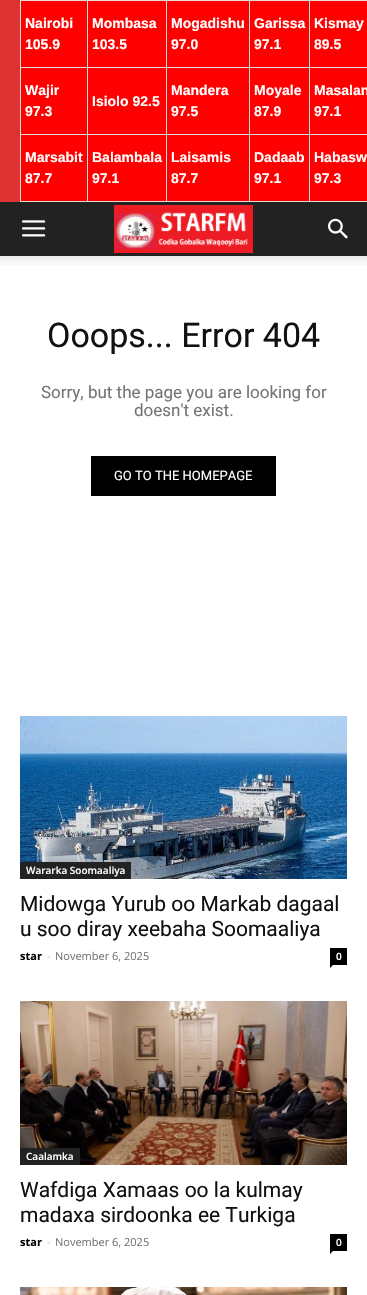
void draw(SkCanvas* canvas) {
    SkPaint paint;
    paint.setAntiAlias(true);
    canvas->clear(0xFFFFFFFF);
    paint.setColor(0xFFDD3333);
    canvas->drawRect(SkRect::MakeXYWH(0, 0, 20, 202), paint);
    paint.setColor(0xFFFF0000);
    canvas->drawRect(SkRect::MakeXYWH(21, 1, 66, 66), paint);
    paint.setColor(0xFFDDDDDD);
    canvas->drawRect(SkRect::MakeXYWH(309, 0, 58, 1), paint);
    canvas->drawRect(SkRect::MakeXYWH(309, 67, 58, 1), paint);
    canvas->drawRect(SkRect::MakeXYWH(309, 134, 58, 1), paint);
    canvas->drawRect(SkRect::MakeXYWH(309, 201, 58, 1), paint);
    canvas->drawRect(SkRect::MakeXYWH(309, 134, 1, 68), paint);
    canvas->drawRect(SkRect::MakeXYWH(249, 134, 61, 1), paint);
    canvas->drawRect(SkRect::MakeXYWH(309, 67, 1, 68), paint);
    canvas->drawRect(SkRect::MakeXYWH(249, 67, 61, 1), paint);
    canvas->drawRect(SkRect::MakeXYWH(309, 0, 1, 68), paint);
    canvas->drawRect(SkRect::MakeXYWH(249, 0, 61, 1), paint);
    canvas->drawRect(SkRect::MakeXYWH(249, 201, 61, 1), paint);
    canvas->drawRect(SkRect::MakeXYWH(249, 134, 1, 68), paint);
    canvas->drawRect(SkRect::MakeXYWH(166, 134, 84, 1), paint);
    canvas->drawRect(SkRect::MakeXYWH(249, 67, 1, 68), paint);
    canvas->drawRect(SkRect::MakeXYWH(166, 67, 84, 1), paint);
    canvas->drawRect(SkRect::MakeXYWH(249, 0, 1, 68), paint);
    canvas->drawRect(SkRect::MakeXYWH(166, 0, 84, 1), paint);
    canvas->drawRect(SkRect::MakeXYWH(166, 201, 84, 1), paint);
    canvas->drawRect(SkRect::MakeXYWH(166, 134, 1, 68), paint);
    canvas->drawRect(SkRect::MakeXYWH(87, 134, 80, 1), paint);
    canvas->drawRect(SkRect::MakeXYWH(166, 67, 1, 68), paint);
    canvas->drawRect(SkRect::MakeXYWH(87, 67, 80, 1), paint);
    canvas->drawRect(SkRect::MakeXYWH(166, 0, 1, 68), paint);
    canvas->drawRect(SkRect::MakeXYWH(87, 0, 80, 1), paint);
    canvas->drawRect(SkRect::MakeXYWH(87, 201, 80, 1), paint);
    canvas->drawRect(SkRect::MakeXYWH(87, 134, 1, 68), paint);
    canvas->drawRect(SkRect::MakeXYWH(20, 134, 68, 1), paint);
    canvas->drawRect(SkRect::MakeXYWH(87, 67, 1, 68), paint);
    canvas->drawRect(SkRect::MakeXYWH(20, 67, 68, 1), paint);
    canvas->drawRect(SkRect::MakeXYWH(87, 0, 1, 68), paint);
    canvas->drawRect(SkRect::MakeXYWH(20, 0, 68, 1), paint);
    canvas->drawRect(SkRect::MakeXYWH(20, 201, 68, 1), paint);
    canvas->drawRect(SkRect::MakeXYWH(20, 134, 1, 68), paint);
    canvas->drawRect(SkRect::MakeXYWH(20, 67, 1, 68), paint);
    canvas->drawRect(SkRect::MakeXYWH(20, 0, 1, 68), paint);
    SkFont font1(fontMgr->matchFamilyStyle("Liberation Sans", SkFontStyle::Bold()), 14);
    font1.setSubpixel(true);
    paint.setColor(0xFFFFFFFF);
    canvas->drawString("Nairobi", 25, 28, font1, paint);
    canvas->drawString("105.9", 25, 49, font1, paint);
    paint.setColor(0xFFFF0000);
    canvas->drawRect(SkRect::MakeXYWH(88, 1, 78, 66), paint);
    paint.setColor(0xFFFFFFFF);
    canvas->drawString("Mombasa", 92, 28, font1, paint);
    canvas->drawString("103.5", 92, 49, font1, paint);
    paint.setColor(0xFFFF0000);
    canvas->drawRect(SkRect::MakeXYWH(167, 1, 82, 66), paint);
    paint.setColor(0xFFFFFFFF);
    canvas->drawString("Mogadishu", 171, 28, font1, paint);
    canvas->drawString("97.0", 171, 49, font1, paint);
    paint.setColor(0xFFFF0000);
    canvas->drawRect(SkRect::MakeXYWH(250, 1, 59, 66), paint);
    paint.setColor(0xFFFFFFFF);
    canvas->drawString("Garissa", 254, 28, font1, paint);
    canvas->drawString("97.1", 254, 49, font1, paint);
    paint.setColor(0xFFFF0000);
    canvas->drawRect(SkRect::MakeXYWH(310, 1, 57, 66), paint);
    paint.setColor(0xFFFFFFFF);
    canvas->drawString("Kismay", 314, 28, font1, paint);
    canvas->drawString("89.5", 314, 49, font1, paint);
    paint.setColor(0xFFFF0000);
    canvas->drawRect(SkRect::MakeXYWH(21, 68, 66, 66), paint);
    paint.setColor(0xFFFFFFFF);
    canvas->drawString("Wajir", 25, 95, font1, paint);
    canvas->drawString("97.3", 25, 116, font1, paint);
    paint.setColor(0xFFFF0000);
    canvas->drawRect(SkRect::MakeXYWH(88, 68, 78, 66), paint);
    paint.setColor(0xFFFFFFFF);
    canvas->drawString("Isiolo 92.5", 92, 106, font1, paint);
    paint.setColor(0xFFFF0000);
    canvas->drawRect(SkRect::MakeXYWH(167, 68, 82, 66), paint);
    paint.setColor(0xFFFFFFFF);
    canvas->drawString("Mandera", 171, 95, font1, paint);
    canvas->drawString("97.5", 171, 116, font1, paint);
    paint.setColor(0xFFFF0000);
    canvas->drawRect(SkRect::MakeXYWH(250, 68, 59, 66), paint);
    paint.setColor(0xFFFFFFFF);
    canvas->drawString("Moyale", 254, 95, font1, paint);
    canvas->drawString("87.9", 254, 116, font1, paint);
    paint.setColor(0xFFFF0000);
    canvas->drawRect(SkRect::MakeXYWH(310, 68, 57, 66), paint);
    paint.setColor(0xFFFFFFFF);
    canvas->drawString("Masalan", 314, 95, font1, paint);
    canvas->drawString("97.1", 314, 116, font1, paint);
    paint.setColor(0xFFFF0000);
    canvas->drawRect(SkRect::MakeXYWH(21, 135, 66, 66), paint);
    paint.setColor(0xFFFFFFFF);
    canvas->drawString("Marsabit", 25, 162, font1, paint);
    canvas->drawString("87.7", 25, 183, font1, paint);
    paint.setColor(0xFFFF0000);
    canvas->drawRect(SkRect::MakeXYWH(88, 135, 78, 66), paint);
    paint.setColor(0xFFFFFFFF);
    canvas->drawString("Balambala", 92, 162, font1, paint);
    canvas->drawString("97.1", 92, 183, font1, paint);
    paint.setColor(0xFFFF0000);
    canvas->drawRect(SkRect::MakeXYWH(167, 135, 82, 66), paint);
    paint.setColor(0xFFFFFFFF);
    canvas->drawString("Laisamis", 171, 162, font1, paint);
    canvas->drawString("87.7", 171, 183, font1, paint);
    paint.setColor(0xFFFF0000);
    canvas->drawRect(SkRect::MakeXYWH(250, 135, 59, 66), paint);
    paint.setColor(0xFFFFFFFF);
    canvas->drawString("Dadaab", 254, 162, font1, paint);
    canvas->drawString("97.1", 254, 183, font1, paint);
    paint.setColor(0xFFFF0000);
    canvas->drawRect(SkRect::MakeXYWH(310, 135, 57, 66), paint);
    paint.setColor(0xFFFFFFFF);
    canvas->drawString("Habasw", 314, 162, font1, paint);
    canvas->drawString("97.3", 314, 183, font1, paint);
    paint.setColor(0xFF222222);
    canvas->drawRect(SkRect::MakeXYWH(0, 202, 367, 54), paint);
    canvas->drawImageRect(SkImages::DeferredFromEncodedData(SkData::MakeFromFileName("img1.png")), SkRect::MakeXYWH(22, 220, 24, 17), SkSamplingOptions());
    canvas->drawImageRect(SkImages::DeferredFromEncodedData(SkData::MakeFromFileName("img2.png")), SkRect::MakeXYWH(114, 205, 139, 48), SkSamplingOptions());
    canvas->drawImageRect(SkImages::DeferredFromEncodedData(SkData::MakeFromFileName("img3.png")), SkRect::MakeXYWH(328, 218, 20, 21), SkSamplingOptions());
    canvas->drawImageRect(SkImages::DeferredFromEncodedData(SkData::MakeFromFileName("img4.png")), SkRect::MakeXYWH(0, 256, 367, 9), SkSamplingOptions());
    SkFont font2(fontMgr->matchFamilyStyle("Roboto", SkFontStyle::Normal()), 34);
    font2.setSubpixel(true);
    paint.setColor(0xFF111111);
    canvas->drawString("Ooops... Error 404", 47, 347, font2, paint);
    SkFont font3(fontMgr->matchFamilyStyle("Roboto", SkFontStyle::Normal()), 17);
    font3.setSubpixel(true);
    paint.setColor(0xFF757575);
    canvas->drawString("Sorry, but the page you are looking for", 41, 398, font3, paint);
    canvas->drawString("doesn't exist.", 134, 416, font3, paint);
    paint.setColor(0xFF000000);
    canvas->drawRect(SkRect::MakeXYWH(91, 456, 185, 40), paint);
    SkFont font4(fontMgr->matchFamilyStyle("Roboto", SkFontStyle::Normal()), 13);
    font4.setSubpixel(true);
    paint.setColor(0xFFFFFFFF);
    canvas->drawString("GO TO THE HOMEPAGE", 114, 480, font4, paint);
    canvas->drawImageRect(SkImages::DeferredFromEncodedData(SkData::MakeFromFileName("img5.png")), SkRect::MakeXYWH(20, 716, 327, 163), SkSamplingOptions());
    paint.setColor(0xFF222222);
    canvas->drawRect(SkRect::MakeXYWH(20, 862, 111, 17), paint);
    SkFont font5(fontMgr->matchFamilyStyle("Open Sans", SkFontStyle(600, SkFontStyle::kNormal_Width, SkFontStyle::kUpright_Slant)), 10);
    font5.setSubpixel(true);
    paint.setColor(0xFFFFFFFF);
    canvas->drawString("Wararka Soomaaliya", 26, 874, font5, paint);
    SkFont font6(fontMgr->matchFamilyStyle("Roboto", SkFontStyle::Normal()), 21);
    font6.setSubpixel(true);
    paint.setColor(0xFF111111);
    canvas->drawString("Midowga Yurub oo Markab dagaal", 20, 911, font6, paint);
    canvas->drawString("u soo diray xeebaha Soomaaliya", 20, 936, font6, paint);
    SkFont font7(fontMgr->matchFamilyStyle("Open Sans", SkFontStyle::Bold()), 11);
    font7.setSubpixel(true);
    paint.setColor(0xFF000000);
    canvas->drawString("star", 20, 960, font7, paint);
    SkFont font8(fontMgr->matchFamilyStyle("Open Sans", SkFontStyle::Normal()), 11);
    font8.setSubpixel(true);
    paint.setColor(0xFFCCCCCC);
    canvas->drawString("-", 47, 960, font8, paint);
    paint.setColor(0xFF757575);
    canvas->drawString("November 6, 2025", 55, 960, font8, paint);
    paint.setColor(0xFF000000);
    canvas->drawRect(SkRect::MakeXYWH(330, 948, 17, 17), paint);
    paint.setColor(0xFFFFFFFF);
    canvas->drawString("0", 336, 960, font5, paint);
    paint.setColor(0xFF000000);
    canvas->drawPath(SkPathBuilder().moveTo(330, 965).lineTo(333, 965).lineTo(330, 968).close().detach(), paint);
    canvas->drawImageRect(SkImages::DeferredFromEncodedData(SkData::MakeFromFileName("img6.png")), SkRect::MakeXYWH(20, 1001, 327, 164), SkSamplingOptions());
    paint.setColor(0xFF222222);
    canvas->drawRect(SkRect::MakeXYWH(20, 1148, 60, 17), paint);
    paint.setColor(0xFFFFFFFF);
    canvas->drawString("Caalamka", 26, 1160, font5, paint);
    paint.setColor(0xFF111111);
    canvas->drawString("Wafdiga Xamaas oo la kulmay", 20, 1197, font6, paint);
    canvas->drawString("madaxa sirdoonka ee Turkiga", 20, 1222, font6, paint);
    paint.setColor(0xFF000000);
    canvas->drawString("star", 20, 1246, font7, paint);
    paint.setColor(0xFFCCCCCC);
    canvas->drawString("-", 47, 1246, font8, paint);
    paint.setColor(0xFF757575);
    canvas->drawString("November 6, 2025", 55, 1246, font8, paint);
    paint.setColor(0xFF000000);
    canvas->drawRect(SkRect::MakeXYWH(330, 1234, 17, 17), paint);
    paint.setColor(0xFFFFFFFF);
    canvas->drawString("0", 336, 1246, font5, paint);
    paint.setColor(0xFF000000);
    canvas->drawPath(SkPathBuilder().moveTo(330, 1251).lineTo(333, 1251).lineTo(330, 1254).close().detach(), paint);
    canvas->drawImageRect(SkImages::DeferredFromEncodedData(SkData::MakeFromFileName("img7.png")), SkRect::MakeXYWH(20, 1287, 327, 8), SkSamplingOptions());
}
